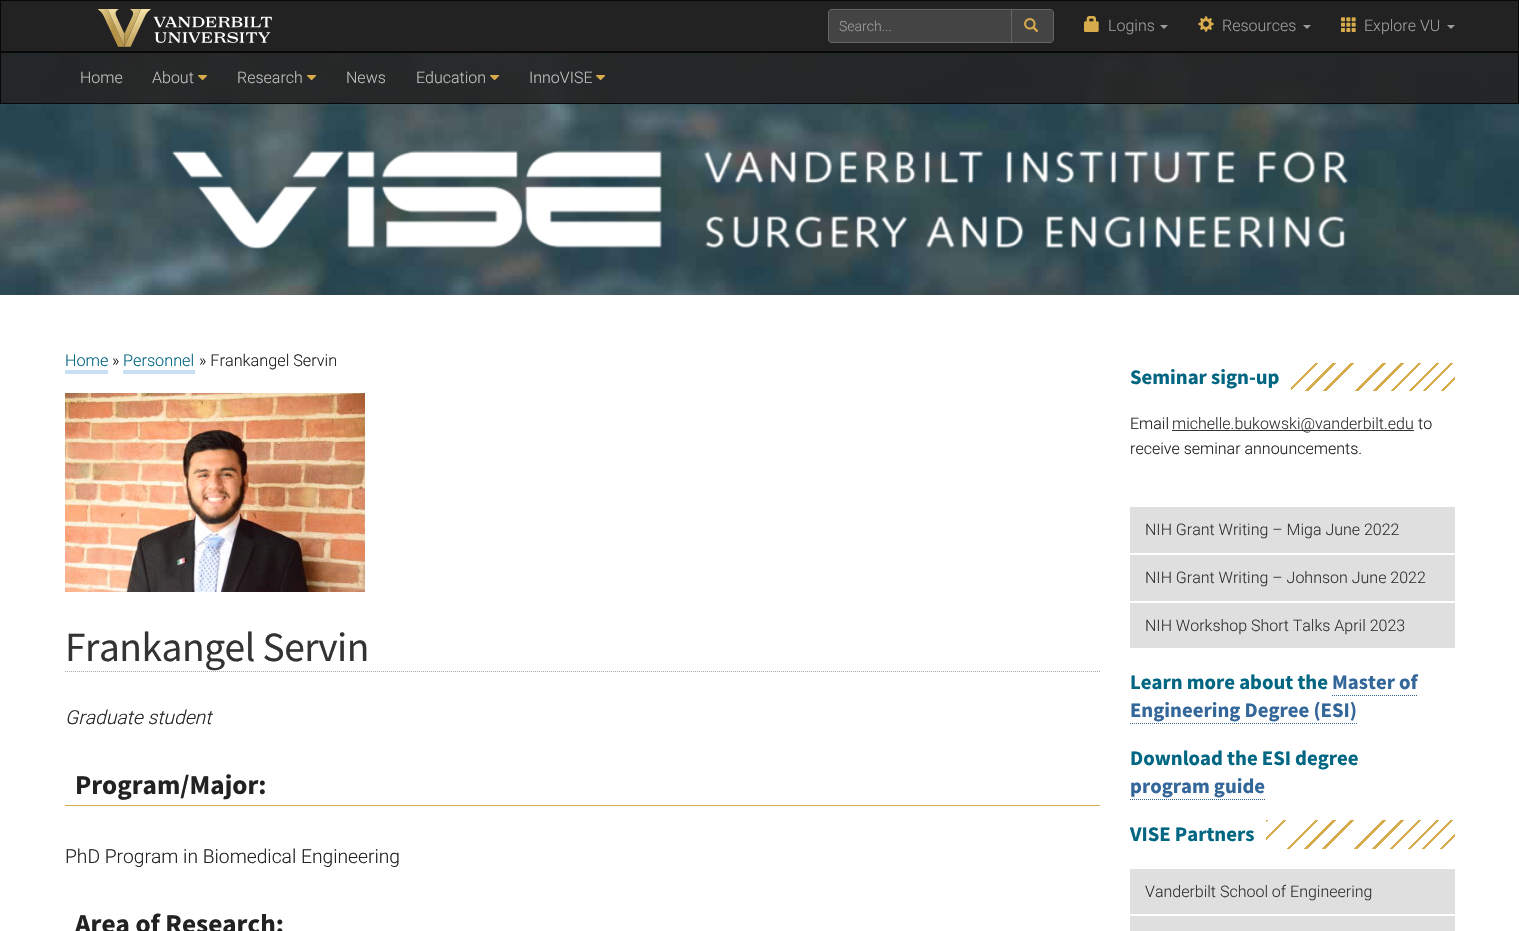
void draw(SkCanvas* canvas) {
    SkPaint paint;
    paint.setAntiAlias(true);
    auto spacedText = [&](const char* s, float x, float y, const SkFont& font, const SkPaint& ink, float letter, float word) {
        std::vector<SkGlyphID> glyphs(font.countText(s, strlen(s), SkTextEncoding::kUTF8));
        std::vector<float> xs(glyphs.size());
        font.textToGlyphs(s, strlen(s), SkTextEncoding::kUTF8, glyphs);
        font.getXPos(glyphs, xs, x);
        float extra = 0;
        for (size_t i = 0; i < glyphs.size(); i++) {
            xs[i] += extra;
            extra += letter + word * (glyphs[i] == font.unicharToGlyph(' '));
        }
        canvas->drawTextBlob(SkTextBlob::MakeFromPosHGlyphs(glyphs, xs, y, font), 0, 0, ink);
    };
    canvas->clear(0xFFFFFFFF);
    paint.setColor(0xFF222222);
    canvas->drawRect(SkRect::MakeXYWH(0.5f, 0.5f, 1518, 51), paint);
    paint.setStyle(SkPaint::kStroke_Style);
    paint.setStrokeWidth(1);
    paint.setColor(0xFF080808);
    canvas->drawRect(SkRect::MakeXYWH(0.5f, 0.5f, 1518, 51), paint);
    canvas->drawImageRect(SkImages::DeferredFromEncodedData(SkData::MakeFromFileName("img1.png")), SkRect::MakeXYWH(98, 9, 174, 38), SkSamplingOptions());
    paint.setStyle(SkPaint::kFill_Style);
    paint.setColor(0xFF444444);
    canvas->drawPath(SkPathBuilder().moveTo(832, 9).lineTo(1012, 9).lineTo(1012, 43).lineTo(832, 43).cubicTo(830, 43, 828, 41, 828, 39).lineTo(828, 13).cubicTo(828, 11, 830, 9, 832, 9).close().detach(), paint);
    paint.setColor(0xFF3F3F3F);
    canvas->drawPath(SkPathBuilder().moveTo(832, 11).lineTo(1011, 11).lineTo(1011, 10).lineTo(831, 10).cubicTo(829, 11, 829, 12, 829, 14).cubicTo(829, 12, 830, 11, 832, 11).close().detach(), paint);
    paint.setStyle(SkPaint::kStroke_Style);
    paint.setColor(0xFF666666);
    canvas->drawPath(SkPathBuilder().moveTo(832, 9.5f).lineTo(1011.5f, 9.5f).lineTo(1011.5f, 42.5f).lineTo(832, 42.5f).cubicTo(830, 42.5f, 828.5f, 41, 828.5f, 39).lineTo(828.5f, 13).cubicTo(828.5f, 11, 830, 9.5f, 832, 9.5f).close().detach(), paint);
    SkFont font1(fontMgr->matchFamilyStyle("Roboto", SkFontStyle(300, SkFontStyle::kNormal_Width, SkFontStyle::kUpright_Slant)), 14);
    font1.setSubpixel(true);
    paint.setStyle(SkPaint::kFill_Style);
    paint.setColor(0xFF9D9D9D);
    canvas->drawString("Search...", 839, 31, font1, paint);
    paint.setColor(0xFF444444);
    canvas->drawPath(SkPathBuilder().moveTo(1011.5f, 9.5f).lineTo(1050, 9.5f).cubicTo(1052, 9.5f, 1053.5f, 11, 1053.5f, 13).lineTo(1053.5f, 39).cubicTo(1053.5f, 41, 1052, 42.5f, 1050, 42.5f).lineTo(1011.5f, 42.5f).close().detach(), paint);
    paint.setStyle(SkPaint::kStroke_Style);
    paint.setColor(0xFF666666);
    canvas->drawPath(SkPathBuilder().moveTo(1011.5f, 9.5f).lineTo(1050, 9.5f).cubicTo(1052, 9.5f, 1053.5f, 11, 1053.5f, 13).lineTo(1053.5f, 39).cubicTo(1053.5f, 41, 1052, 42.5f, 1050, 42.5f).lineTo(1011.5f, 42.5f).close().detach(), paint);
    canvas->drawImageRect(SkImages::DeferredFromEncodedData(SkData::MakeFromFileName("img2.png")), SkRect::MakeXYWH(1024, 18, 15, 14), SkSamplingOptions());
    canvas->drawImageRect(SkImages::DeferredFromEncodedData(SkData::MakeFromFileName("img3.png")), SkRect::MakeXYWH(1084, 16, 15, 16), SkSamplingOptions());
    SkFont font2(fontMgr->matchFamilyStyle("Roboto", SkFontStyle(300, SkFontStyle::kNormal_Width, SkFontStyle::kUpright_Slant)), 16);
    font2.setSubpixel(true);
    paint.setStyle(SkPaint::kFill_Style);
    paint.setColor(0xFF9D9D9D);
    canvas->drawString("Logins", 1108, 31, font2, paint);
    canvas->drawPath(SkPathBuilder().moveTo(1160, 25).lineTo(1168, 25).lineTo(1164, 29).close().detach(), paint);
    canvas->drawImageRect(SkImages::DeferredFromEncodedData(SkData::MakeFromFileName("img4.png")), SkRect::MakeXYWH(1198, 16, 16, 16), SkSamplingOptions());
    canvas->drawString("Resources", 1222, 31, font2, paint);
    canvas->drawPath(SkPathBuilder().moveTo(1303, 25).lineTo(1311, 25).lineTo(1307, 29).close().detach(), paint);
    canvas->drawImageRect(SkImages::DeferredFromEncodedData(SkData::MakeFromFileName("img5.png")), SkRect::MakeXYWH(1341, 17, 15, 15), SkSamplingOptions());
    canvas->drawString("Explore VU", 1364, 31, font2, paint);
    canvas->drawPath(SkPathBuilder().moveTo(1447, 25).lineTo(1455, 25).lineTo(1451, 29).close().detach(), paint);
    canvas->drawImageRect(SkImages::DeferredFromEncodedData(SkData::MakeFromFileName("img6.png")), SkRect::MakeXYWH(0, 53, 1519, 242), SkSamplingOptions());
    canvas->drawImageRect(SkImages::DeferredFromEncodedData(SkData::MakeFromFileName("img7.png")), SkRect::MakeXYWH(172, 150, 1177, 99), SkSamplingOptions());
    paint.setColor(0xE6222222);
    canvas->drawRect(SkRect::MakeXYWH(0.5f, 52.5f, 1518, 51), paint);
    paint.setStyle(SkPaint::kStroke_Style);
    paint.setColor(0xFF080808);
    canvas->drawRect(SkRect::MakeXYWH(0.5f, 52.5f, 1518, 51), paint);
    paint.setStyle(SkPaint::kFill_Style);
    paint.setColor(0xFFBFBFBF);
    canvas->drawString("Home", 80, 83, font2, paint);
    canvas->drawString("About", 152, 83, font2, paint);
    canvas->drawImageRect(SkImages::DeferredFromEncodedData(SkData::MakeFromFileName("img8.png")), SkRect::MakeXYWH(198, 75, 10, 6), SkSamplingOptions());
    canvas->drawString("Research", 237, 83, font2, paint);
    canvas->drawImageRect(SkImages::DeferredFromEncodedData(SkData::MakeFromFileName("img9.png")), SkRect::MakeXYWH(307, 75, 10, 6), SkSamplingOptions());
    canvas->drawString("News", 346, 83, font2, paint);
    canvas->drawString("Education", 416, 83, font2, paint);
    canvas->drawImageRect(SkImages::DeferredFromEncodedData(SkData::MakeFromFileName("img10.png")), SkRect::MakeXYWH(490, 75, 10, 6), SkSamplingOptions());
    canvas->drawString("InnoVISE", 529, 83, font2, paint);
    canvas->drawImageRect(SkImages::DeferredFromEncodedData(SkData::MakeFromFileName("img11.png")), SkRect::MakeXYWH(596, 75, 10, 6), SkSamplingOptions());
    SkFont font3(fontMgr->matchFamilyStyle("Roboto", SkFontStyle(300, SkFontStyle::kNormal_Width, SkFontStyle::kUpright_Slant)), 16.25f);
    font3.setSubpixel(true);
    paint.setColor(0xFF006682);
    canvas->drawString("Home", 65, 366, font3, paint);
    paint.setColor(0xFFC9DFF6);
    canvas->drawRect(SkRect::MakeXYWH(65, 370, 43, 4), paint);
    paint.setColor(0xFF222222);
    canvas->drawString("»", 112, 366, font3, paint);
    paint.setColor(0xFF006682);
    canvas->drawString("Personnel", 123, 366, font3, paint);
    paint.setColor(0xFFC9DFF6);
    canvas->drawRect(SkRect::MakeXYWH(123, 370, 72, 4), paint);
    paint.setColor(0xFF222222);
    canvas->drawString("» Frankangel Servin", 199, 366, font3, paint);
    canvas->drawImageRect(SkImages::DeferredFromEncodedData(SkData::MakeFromFileName("img12.png")), SkRect::MakeXYWH(65, 393, 300, 199), SkSamplingOptions());
    paint.setStyle(SkPaint::kStroke_Style);
    paint.setColor(0xFFAAAAAA);
    paint.setPathEffect(SkDashPathEffect::Make({{1, 1}}, 0));
    canvas->drawPath(SkPathBuilder().moveTo(65, 671.5f).lineTo(1100, 671.5f).detach(), paint);
    paint.setPathEffect(nullptr);
    SkFont font4(fontMgr->matchFamilyStyle("Source Sans Pro", SkFontStyle::Normal()), 41.5f);
    font4.setSubpixel(true);
    paint.setStyle(SkPaint::kFill_Style);
    paint.setColor(0xFF333333);
    spacedText("Frankangel Servin", 65, 661, font4, paint, -0.5f, 0);
    SkFont font5(fontMgr->matchFamilyStyle("Roboto", SkFontStyle(300, SkFontStyle::kNormal_Width, SkFontStyle::kItalic_Slant)), 19.25f);
    font5.setSubpixel(true);
    paint.setColor(0xFF222222);
    canvas->drawString("Graduate student", 65, 724, font5, paint);
    paint.setColor(0xFFD8AB4C);
    canvas->drawRect(SkRect::MakeXYWH(65, 805, 1035, 1), paint);
    SkFont font6(fontMgr->matchFamilyStyle("Source Sans Pro", SkFontStyle::Bold()), 27.25f);
    font6.setSubpixel(true);
    paint.setColor(0xFF222222);
    canvas->drawString("Program/Major:", 75, 794, font6, paint);
    SkFont font7(fontMgr->matchFamilyStyle("Roboto", SkFontStyle(300, SkFontStyle::kNormal_Width, SkFontStyle::kUpright_Slant)), 19.25f);
    font7.setSubpixel(true);
    canvas->drawString("PhD Program in Biomedical Engineering", 65, 863, font7, paint);
    canvas->drawString("Area of Research:", 75, 933, font6, paint);
    {
        const SkColor colors[] = {0xFFD8AB4C, 0xFFD8AB4C, 0xFFFFFFFF, 0xFFFFFFFF, 0xFFD8AB4C, 0xFFD8AB4C, 0xFFFFFFFF, 0xFFFFFFFF, 0xFFD8AB4C, 0xFFD8AB4C, 0xFFFFFFFF, 0xFFFFFFFF, 0xFFD8AB4C, 0xFFD8AB4C, 0xFFFFFFFF, 0xFFFFFFFF, 0xFFD8AB4C, 0xFFD8AB4C, 0xFFFFFFFF, 0xFFFFFFFF, 0xFFD8AB4C, 0xFFD8AB4C, 0xFFFFFFFF, 0xFFFFFFFF, 0xFFD8AB4C, 0xFFD8AB4C, 0xFFFFFFFF, 0xFFFFFFFF, 0xFFD8AB4C, 0xFFD8AB4C, 0xFFFFFFFF, 0xFFFFFFFF, 0xFFD8AB4C, 0xFFD8AB4C, 0xFFFFFFFF, 0xFFFFFFFF, 0xFFD8AB4C, 0xFFD8AB4C, 0xFFFFFFFF, 0xFFFFFFFF, 0xFFD8AB4C, 0xFFD8AB4C, 0xFFFFFFFF, 0xFFFFFFFF, 0xFFD8AB4C, 0xFFD8AB4C, 0xFFFFFFFF, 0xFFFFFFFF, 0xFFD8AB4C, 0xFFD8AB4C, 0xFFFFFFFF, 0xFFFFFFFF, 0xFFD8AB4C, 0xFFD8AB4C, 0xFFFFFFFF, 0xFFFFFFFF, 0xFFD8AB4C, 0xFFD8AB4C, 0xFFFFFFFF, 0xFFFFFFFF, 0xFFD8AB4C, 0xFFD8AB4C, 0xFFFFFFFF, 0xFFFFFFFF, 0xFFD8AB4C, 0xFFD8AB4C, 0xFFFFFFFF, 0xFFFFFFFF, 0xFFD8AB4C, 0xFFD8AB4C, 0xFFFFFFFF, 0xFFFFFFFF, 0xFFD8AB4C, 0xFFD8AB4C, 0xFFFFFFFF, 0xFFFFFFFF, 0xFFD8AB4C, 0xFFD8AB4C, 0xFFFFFFFF, 0xFFFFFFFF, 0xFFD8AB4C, 0xFFD8AB4C, 0xFFFFFFFF, 0xFFFFFFFF};
        const float stops[] = {0, 0.01f, 0.01f, 0.05f, 0.05f, 0.06f, 0.06f, 0.1f, 0.1f, 0.1f, 0.1f, 0.14f, 0.14f, 0.15f, 0.15f, 0.19f, 0.19f, 0.2f, 0.2f, 0.24f, 0.24f, 0.25f, 0.25f, 0.29f, 0.29f, 0.29f, 0.29f, 0.33f, 0.33f, 0.34f, 0.34f, 0.38f, 0.38f, 0.39f, 0.39f, 0.43f, 0.43f, 0.44f, 0.44f, 0.48f, 0.48f, 0.48f, 0.48f, 0.52f, 0.52f, 0.53f, 0.53f, 0.57f, 0.57f, 0.58f, 0.58f, 0.62f, 0.62f, 0.63f, 0.63f, 0.67f, 0.67f, 0.67f, 0.67f, 0.71f, 0.71f, 0.72f, 0.72f, 0.76f, 0.76f, 0.77f, 0.77f, 0.81f, 0.81f, 0.82f, 0.82f, 0.86f, 0.86f, 0.87f, 0.87f, 0.9f, 0.9f, 0.91f, 0.91f, 0.95f, 0.95f, 0.96f, 0.96f, 1};
        const SkPoint ends[] = {{1204, 289}, {1382, 467}};
        paint.setShader(SkGradientShader::MakeLinear(ends, colors, stops, 84, SkTileMode::kClamp));
        paint.setAlpha(255);
    }
    canvas->drawRect(SkRect::MakeXYWH(1291, 363, 164, 28), paint);
    SkFont font8(fontMgr->matchFamilyStyle("Source Sans Pro", SkFontStyle::Bold()), 20.75f);
    font8.setSubpixel(true);
    paint.setShader(nullptr);
    paint.setColor(0xFF006682);
    canvas->drawString("Seminar sign-up", 1130, 384, font8, paint);
    paint.setColor(0xFF222222);
    canvas->drawString("Email", 1130, 429, font2, paint);
    paint.setColor(0xFF333333);
    canvas->drawRect(SkRect::MakeXYWH(1172, 430, 242, 1), paint);
    canvas->drawString("michelle.bukowski@vanderbilt.edu", 1172, 429, font2, paint);
    paint.setColor(0xFF222222);
    canvas->drawString("to", 1418, 429, font2, paint);
    canvas->drawString("receive seminar announcements.", 1130, 454, font2, paint);
    paint.setColor(0xFFDFDFDF);
    canvas->drawRect(SkRect::MakeXYWH(1130, 507, 325, 46), paint);
    paint.setColor(0xFF333333);
    canvas->drawString("NIH Grant Writing – Miga June 2022", 1145, 535, font2, paint);
    paint.setColor(0xFFDFDFDF);
    canvas->drawRect(SkRect::MakeXYWH(1130, 555, 325, 46), paint);
    paint.setColor(0xFF333333);
    canvas->drawString("NIH Grant Writing – Johnson June 2022", 1145, 583, font2, paint);
    paint.setColor(0xFFDFDFDF);
    canvas->drawRect(SkRect::MakeXYWH(1130, 603, 325, 45), paint);
    paint.setColor(0xFF333333);
    canvas->drawString("NIH Workshop Short Talks April 2023", 1145, 631, font2, paint);
    paint.setColor(0xFF006682);
    canvas->drawString("Learn more about the", 1130, 689, font8, paint);
    paint.setColor(0xFF336699);
    canvas->drawString("Master of", 1332, 689, font8, paint);
    paint.setStyle(SkPaint::kStroke_Style);
    paint.setPathEffect(SkDashPathEffect::Make({{1, 1}}, 0));
    canvas->drawPath(SkPathBuilder().moveTo(1332, 695.5f).lineTo(1418, 695.5f).detach(), paint);
    paint.setPathEffect(nullptr);
    paint.setStyle(SkPaint::kFill_Style);
    canvas->drawString("Engineering Degree (ESI)", 1130, 717, font8, paint);
    paint.setStyle(SkPaint::kStroke_Style);
    paint.setPathEffect(SkDashPathEffect::Make({{1, 1}}, 0));
    canvas->drawPath(SkPathBuilder().moveTo(1130, 723.5f).lineTo(1357, 723.5f).detach(), paint);
    paint.setPathEffect(nullptr);
    paint.setStyle(SkPaint::kFill_Style);
    paint.setColor(0xFF006682);
    canvas->drawString("Download the ESI degree", 1130, 765, font8, paint);
    paint.setColor(0xFF336699);
    canvas->drawString("program guide", 1130, 793, font8, paint);
    paint.setStyle(SkPaint::kStroke_Style);
    paint.setPathEffect(SkDashPathEffect::Make({{1, 1}}, 0));
    canvas->drawPath(SkPathBuilder().moveTo(1130, 799.5f).lineTo(1265, 799.5f).detach(), paint);
    paint.setPathEffect(nullptr);
    paint.setStyle(SkPaint::kFill_Style);
    {
        const SkColor colors[] = {0xFFD8AB4C, 0xFFD8AB4C, 0xFFFFFFFF, 0xFFFFFFFF, 0xFFD8AB4C, 0xFFD8AB4C, 0xFFFFFFFF, 0xFFFFFFFF, 0xFFD8AB4C, 0xFFD8AB4C, 0xFFFFFFFF, 0xFFFFFFFF, 0xFFD8AB4C, 0xFFD8AB4C, 0xFFFFFFFF, 0xFFFFFFFF, 0xFFD8AB4C, 0xFFD8AB4C, 0xFFFFFFFF, 0xFFFFFFFF, 0xFFD8AB4C, 0xFFD8AB4C, 0xFFFFFFFF, 0xFFFFFFFF, 0xFFD8AB4C, 0xFFD8AB4C, 0xFFFFFFFF, 0xFFFFFFFF, 0xFFD8AB4C, 0xFFD8AB4C, 0xFFFFFFFF, 0xFFFFFFFF, 0xFFD8AB4C, 0xFFD8AB4C, 0xFFFFFFFF, 0xFFFFFFFF, 0xFFD8AB4C, 0xFFD8AB4C, 0xFFFFFFFF, 0xFFFFFFFF, 0xFFD8AB4C, 0xFFD8AB4C, 0xFFFFFFFF, 0xFFFFFFFF, 0xFFD8AB4C, 0xFFD8AB4C, 0xFFFFFFFF, 0xFFFFFFFF, 0xFFD8AB4C, 0xFFD8AB4C, 0xFFFFFFFF, 0xFFFFFFFF, 0xFFD8AB4C, 0xFFD8AB4C, 0xFFFFFFFF, 0xFFFFFFFF, 0xFFD8AB4C, 0xFFD8AB4C, 0xFFFFFFFF, 0xFFFFFFFF, 0xFFD8AB4C, 0xFFD8AB4C, 0xFFFFFFFF, 0xFFFFFFFF, 0xFFD8AB4C, 0xFFD8AB4C, 0xFFFFFFFF, 0xFFFFFFFF, 0xFFD8AB4C, 0xFFD8AB4C, 0xFFFFFFFF, 0xFFFFFFFF, 0xFFD8AB4C, 0xFFD8AB4C, 0xFFFFFFFF, 0xFFFFFFFF, 0xFFD8AB4C, 0xFFD8AB4C, 0xFFFFFFFF, 0xFFFFFFFF, 0xFFD8AB4C, 0xFFD8AB4C, 0xFFFFFFFF, 0xFFFFFFFF};
        const float stops[] = {0, 0.01f, 0.01f, 0.05f, 0.05f, 0.06f, 0.06f, 0.1f, 0.1f, 0.1f, 0.1f, 0.14f, 0.14f, 0.15f, 0.15f, 0.19f, 0.19f, 0.2f, 0.2f, 0.24f, 0.24f, 0.25f, 0.25f, 0.29f, 0.29f, 0.29f, 0.29f, 0.33f, 0.33f, 0.34f, 0.34f, 0.38f, 0.38f, 0.39f, 0.39f, 0.43f, 0.43f, 0.44f, 0.44f, 0.48f, 0.48f, 0.48f, 0.48f, 0.52f, 0.52f, 0.53f, 0.53f, 0.57f, 0.57f, 0.58f, 0.58f, 0.62f, 0.62f, 0.63f, 0.63f, 0.67f, 0.67f, 0.67f, 0.67f, 0.71f, 0.71f, 0.72f, 0.72f, 0.76f, 0.76f, 0.77f, 0.77f, 0.81f, 0.81f, 0.82f, 0.82f, 0.86f, 0.86f, 0.87f, 0.87f, 0.9f, 0.9f, 0.91f, 0.91f, 0.95f, 0.95f, 0.96f, 0.96f, 1};
        const SkPoint ends[] = {{1204, 746}, {1382, 924}};
        paint.setShader(SkGradientShader::MakeLinear(ends, colors, stops, 84, SkTileMode::kClamp));
        paint.setAlpha(255);
    }
    canvas->drawRect(SkRect::MakeXYWH(1266, 820, 189, 29), paint);
    paint.setShader(nullptr);
    paint.setColor(0xFF006682);
    canvas->drawString("VISE Partners", 1130, 841, font8, paint);
    paint.setColor(0xFFDFDFDF);
    canvas->drawRect(SkRect::MakeXYWH(1130, 869, 325, 45), paint);
    paint.setColor(0xFF333333);
    canvas->drawString("Vanderbilt School of Engineering", 1145, 897, font2, paint);
    paint.setColor(0xFFDFDFDF);
    canvas->drawRect(SkRect::MakeXYWH(1130, 916, 325, 15), paint);
}
